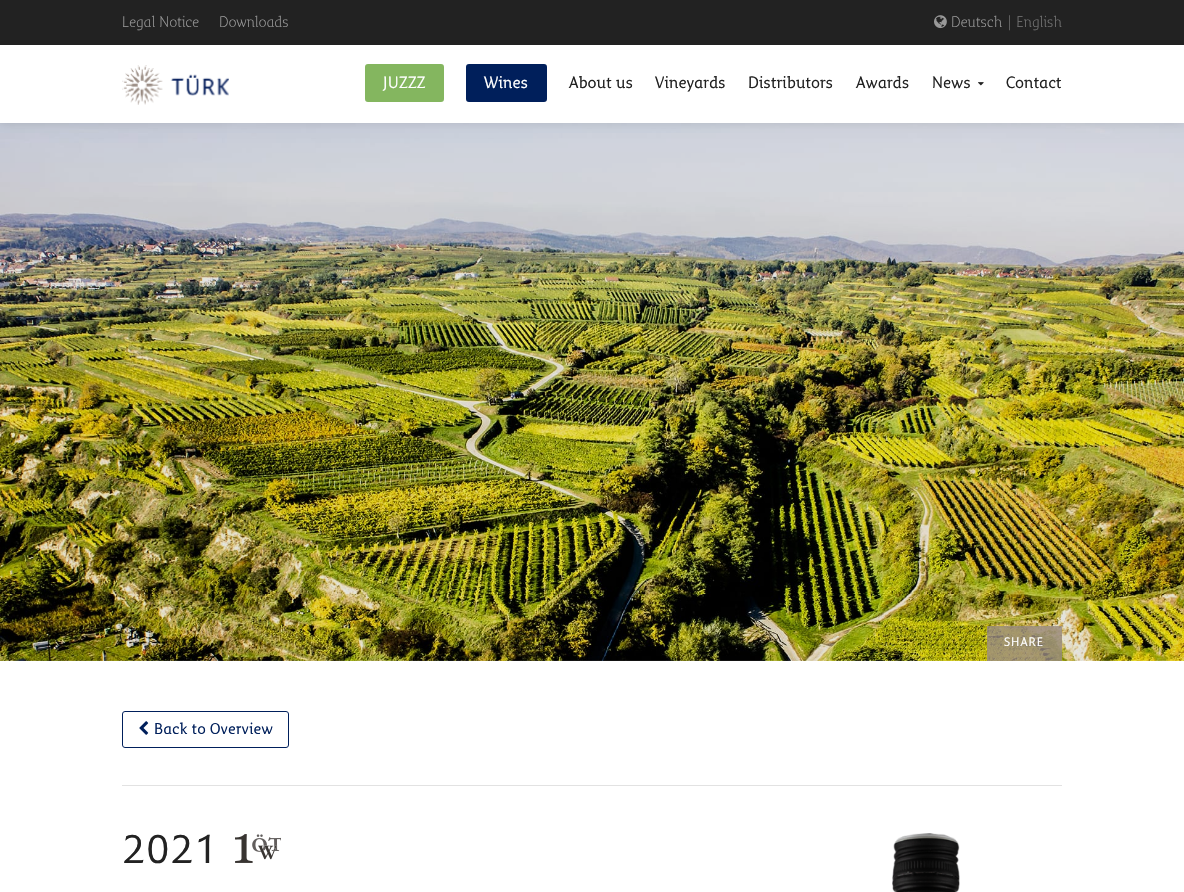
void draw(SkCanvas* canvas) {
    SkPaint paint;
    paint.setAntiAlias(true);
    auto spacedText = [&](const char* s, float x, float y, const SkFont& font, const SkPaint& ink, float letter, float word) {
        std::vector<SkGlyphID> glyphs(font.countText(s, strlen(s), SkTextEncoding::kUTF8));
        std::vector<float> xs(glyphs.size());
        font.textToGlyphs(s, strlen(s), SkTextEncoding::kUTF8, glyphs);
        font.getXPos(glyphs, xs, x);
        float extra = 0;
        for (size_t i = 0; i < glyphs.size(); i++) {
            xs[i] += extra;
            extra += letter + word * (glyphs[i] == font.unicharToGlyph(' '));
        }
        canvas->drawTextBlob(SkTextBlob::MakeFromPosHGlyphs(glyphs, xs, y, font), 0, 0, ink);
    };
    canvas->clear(0xFF222222);
    SkFont font1(fontMgr->matchFamilyStyle("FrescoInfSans", SkFontStyle(300, SkFontStyle::kNormal_Width, SkFontStyle::kUpright_Slant)), 15);
    font1.setSubpixel(true);
    paint.setColor(0xFF999999);
    spacedText("Legal Notice", 122, 27, font1, paint, 0.25f, 0);
    spacedText("Downloads", 219, 27, font1, paint, 0.25f, 0);
    canvas->drawImageRect(SkImages::DeferredFromEncodedData(SkData::MakeFromFileName("img1.png")), SkRect::MakeXYWH(934, 15, 13, 14), SkSamplingOptions());
    spacedText("Deutsch", 951, 27, font1, paint, 0.25f, 0);
    paint.setColor(0xFF757575);
    spacedText("| English", 1007, 27, font1, paint, 0.25f, 0);
    paint.setColor(0xFFFFFFFF);
    canvas->drawRect(SkRect::MakeXYWH(0, 45, 1184, 847), paint);
    canvas->drawImageRect(SkImages::DeferredFromEncodedData(SkData::MakeFromFileName("img4.png")), SkRect::MakeXYWH(0, 123, 1184, 538), SkSamplingOptions());
    canvas->save();
    canvas->clipPath(SkPathBuilder(SkPathFillType::kEvenOdd).moveTo(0, 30).lineTo(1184, 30).lineTo(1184, 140).lineTo(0, 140).close().moveTo(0, 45).lineTo(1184, 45).lineTo(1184, 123).lineTo(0, 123).close().detach(), true);
    paint.setColor(0x1A000000);
    paint.setMaskFilter(SkMaskFilter::MakeBlur(kNormal_SkBlurStyle, 5));
    canvas->drawRect(SkRect::MakeXYWH(0, 46, 1184, 78), paint);
    paint.setMaskFilter(nullptr);
    canvas->restore();
    canvas->drawImageRect(SkImages::DeferredFromEncodedData(SkData::MakeFromFileName("img2.png")), SkRect::MakeXYWH(122, 65, 107, 40), SkSamplingOptions());
    paint.setColor(0xFF84B65F);
    canvas->drawRoundRect(SkRect::MakeXYWH(366, 65, 77, 36), 2, 2, paint);
    paint.setStyle(SkPaint::kStroke_Style);
    paint.setStrokeWidth(2);
    canvas->drawRoundRect(SkRect::MakeXYWH(366, 65, 77, 36), 2, 2, paint);
    SkFont font2(fontMgr->matchFamilyStyle("FrescoInfSans", SkFontStyle::Normal()), 16);
    font2.setSubpixel(true);
    paint.setStyle(SkPaint::kFill_Style);
    paint.setColor(0xFFFFFFFF);
    spacedText("JUZZZ", 383, 88, font2, paint, 0.25f, 0);
    paint.setColor(0xFF001F5B);
    canvas->drawRoundRect(SkRect::MakeXYWH(467, 65, 79, 36), 2, 2, paint);
    paint.setStyle(SkPaint::kStroke_Style);
    canvas->drawRoundRect(SkRect::MakeXYWH(467, 65, 79, 36), 2, 2, paint);
    paint.setStyle(SkPaint::kFill_Style);
    paint.setColor(0xFFFFFFFF);
    spacedText("Wines", 484, 88, font2, paint, 0.25f, 0);
    paint.setColor(0xFF222222);
    spacedText("About us", 569, 88, font2, paint, 0.25f, 0);
    spacedText("Vineyards", 655, 88, font2, paint, 0.25f, 0);
    spacedText("Distributors", 748, 88, font2, paint, 0.25f, 0);
    spacedText("Awards", 856, 88, font2, paint, 0.25f, 0);
    spacedText("News", 932, 88, font2, paint, 0.25f, 0);
    canvas->drawImageRect(SkImages::DeferredFromEncodedData(SkData::MakeFromFileName("img3.png")), SkRect::MakeXYWH(978, 82, 6, 4), SkSamplingOptions());
    spacedText("Contact", 1006, 88, font2, paint, 0.25f, 0);
    paint.setColor(0xCC988B83);
    canvas->drawRect(SkRect::MakeXYWH(987, 626, 75, 35), paint);
    SkFont font3(fontMgr->matchFamilyStyle("FrescoInfSans", SkFontStyle::Normal()), 12);
    font3.setSubpixel(true);
    paint.setColor(0xFFFFFFFF);
    spacedText("SHARE", 1004, 646, font3, paint, 1, 0);
    paint.setStyle(SkPaint::kStroke_Style);
    paint.setStrokeWidth(1);
    paint.setColor(0xFF001F5B);
    canvas->drawRoundRect(SkRect::MakeXYWH(122.5f, 711.5f, 166, 36), 2.5f, 2.5f, paint);
    canvas->drawImageRect(SkImages::DeferredFromEncodedData(SkData::MakeFromFileName("img5.png")), SkRect::MakeXYWH(139, 721, 10, 14), SkSamplingOptions());
    SkFont font4(fontMgr->matchFamilyStyle("FrescoInfSans", SkFontStyle::Normal()), 15.25f);
    font4.setSubpixel(true);
    paint.setStyle(SkPaint::kFill_Style);
    spacedText("Back to Overview", 154, 734, font4, paint, 0.4f, 0);
    paint.setColor(0xFFE2E2E2);
    canvas->drawRect(SkRect::MakeXYWH(122, 785, 940, 1), paint);
    SkFont font5(fontMgr->matchFamilyStyle("FrescoInfSans", SkFontStyle::Normal()), 39);
    font5.setSubpixel(true);
    paint.setColor(0xFF222222);
    spacedText("2021", 122, 863, font5, paint, 1, 0);
    canvas->drawImageRect(SkImages::DeferredFromEncodedData(SkData::MakeFromFileName("img6.png")), SkRect::MakeXYWH(235, 834, 46, 29), SkSamplingOptions());
    canvas->drawImageRect(SkImages::DeferredFromEncodedData(SkData::MakeFromFileName("img7.png")), SkRect::MakeXYWH(892, 833, 68, 59), SkSamplingOptions());
}
